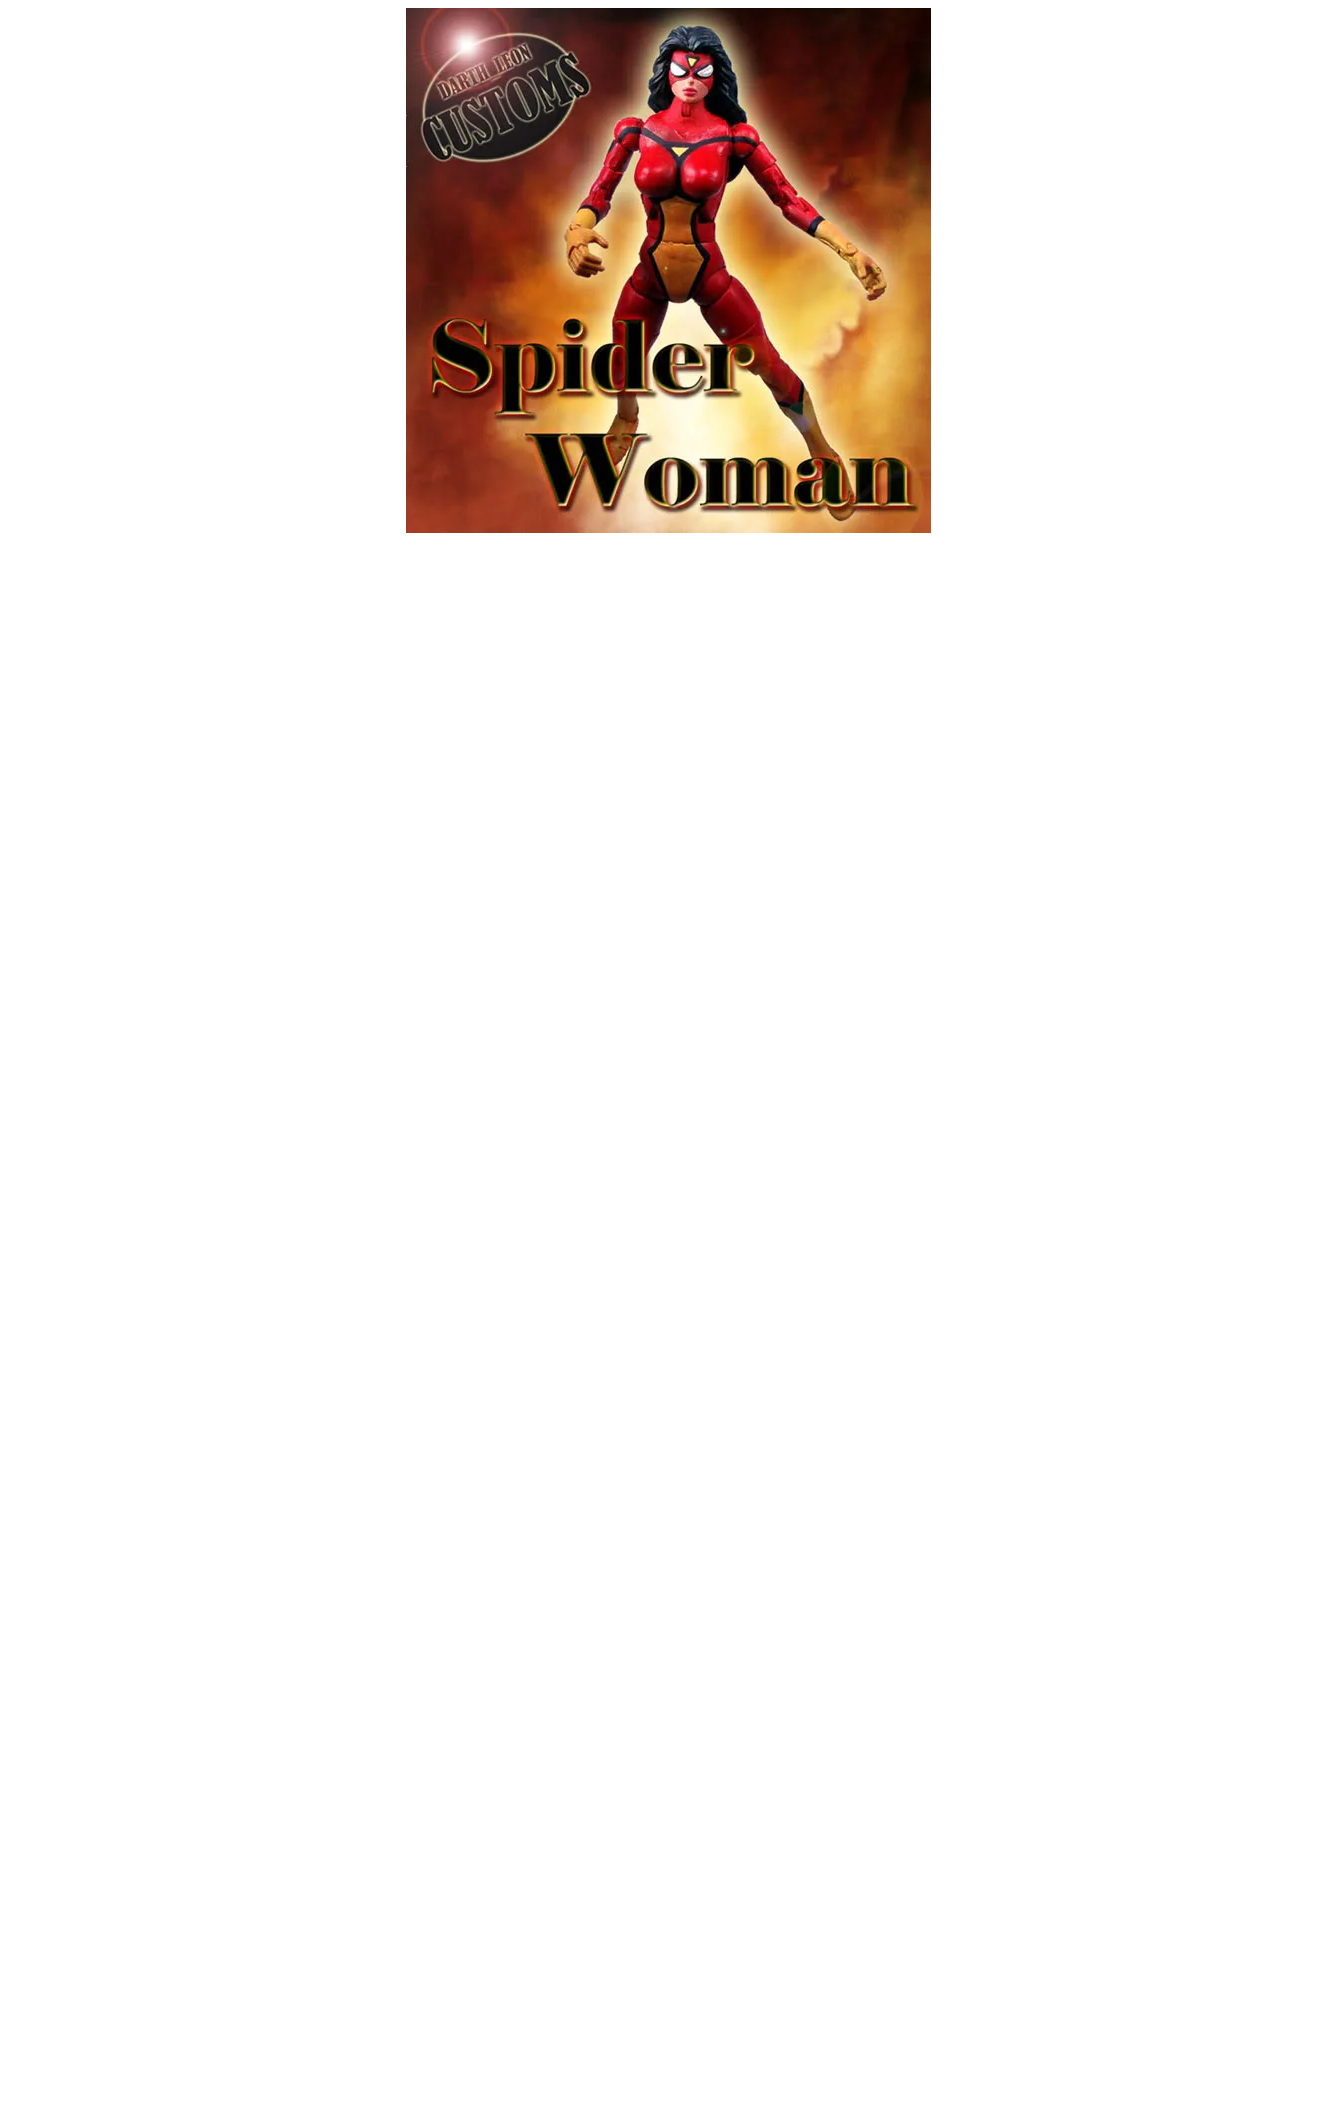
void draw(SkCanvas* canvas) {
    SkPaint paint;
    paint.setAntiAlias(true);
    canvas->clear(0xFFFFFFFF);
    canvas->drawImageRect(SkImages::DeferredFromEncodedData(SkData::MakeFromFileName("img1.png")), SkRect::MakeXYWH(406, 8, 525, 525), SkSamplingOptions());
}
